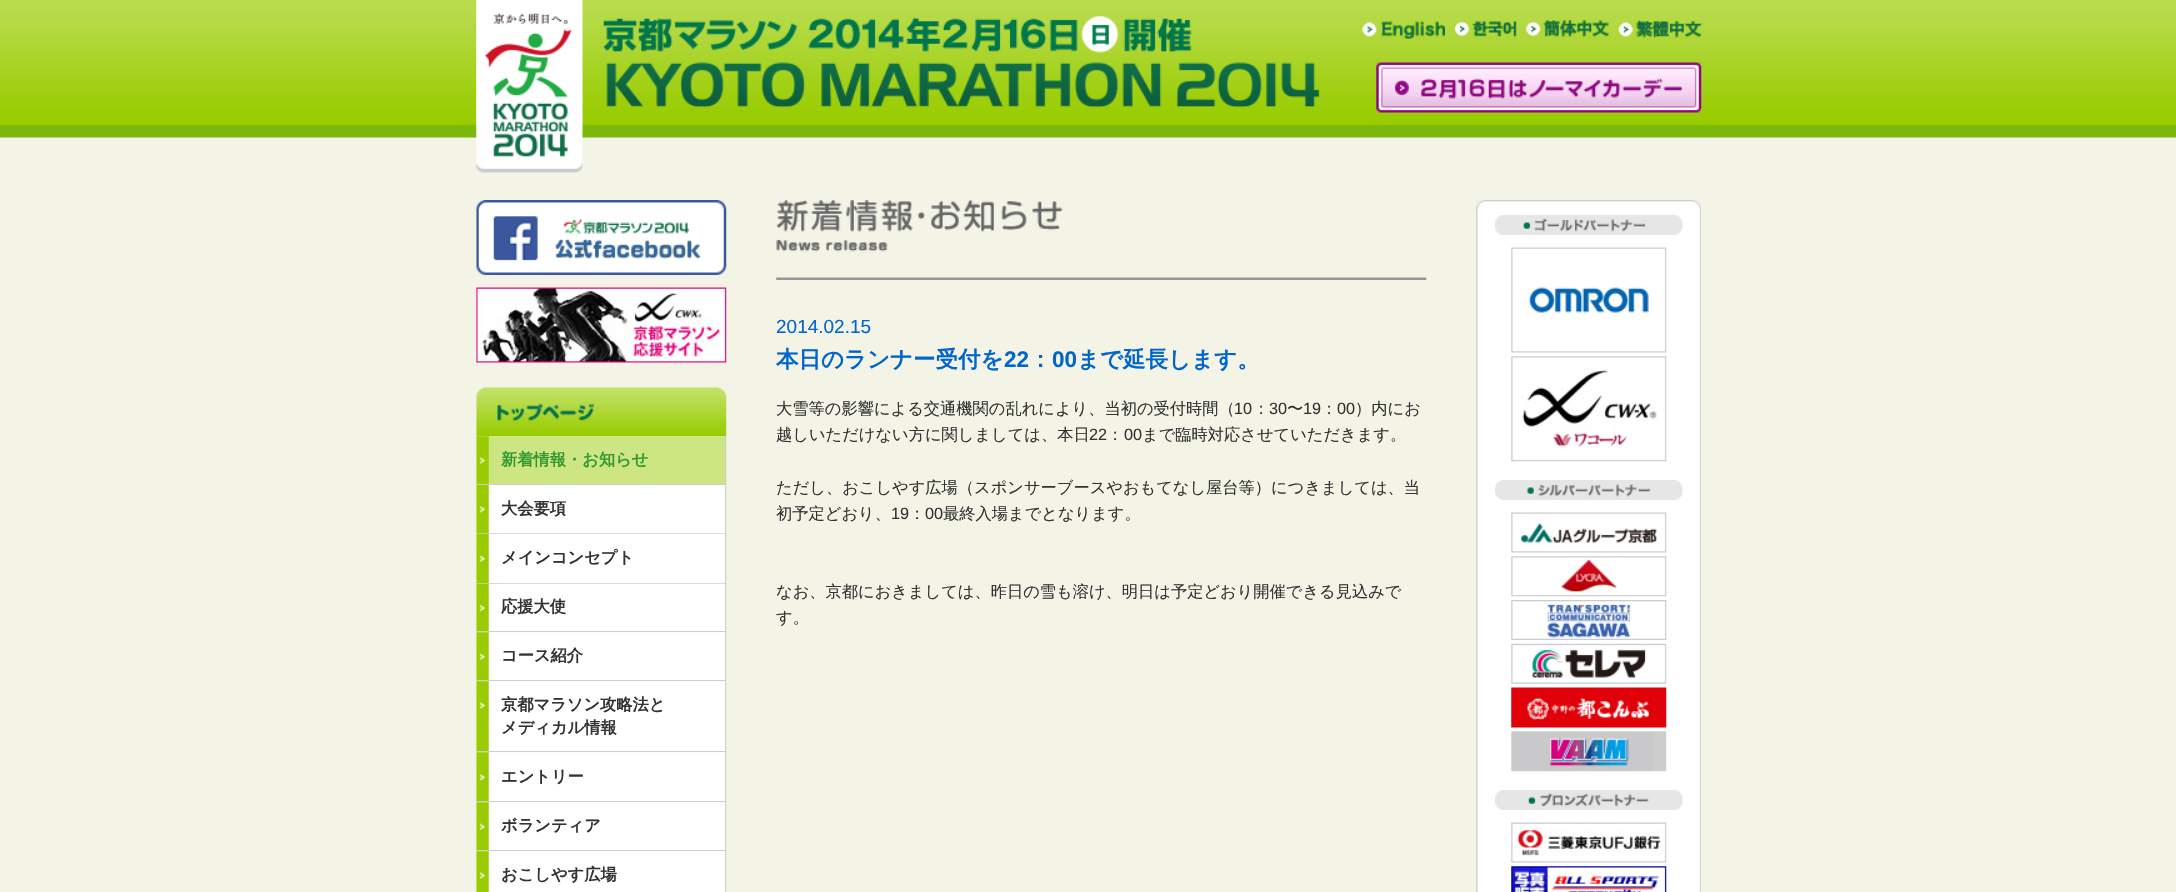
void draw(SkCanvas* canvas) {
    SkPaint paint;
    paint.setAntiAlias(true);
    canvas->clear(0xFFF3F3E6);
    canvas->drawImageRect(SkImages::DeferredFromEncodedData(SkData::MakeFromFileName("img1.png")), SkRect::MakeXYWH(0, 0, 2176, 138), SkSamplingOptions());
    canvas->drawImageRect(SkImages::DeferredFromEncodedData(SkData::MakeFromFileName("img2.png")), SkRect::MakeXYWH(476, 0, 107, 173), SkSamplingOptions());
    canvas->drawImageRect(SkImages::DeferredFromEncodedData(SkData::MakeFromFileName("img3.png")), SkRect::MakeXYWH(603, 16, 717, 92), SkSamplingOptions());
    canvas->drawImageRect(SkImages::DeferredFromEncodedData(SkData::MakeFromFileName("img4.png")), SkRect::MakeXYWH(1362, 21, 83, 18), SkSamplingOptions());
    canvas->drawImageRect(SkImages::DeferredFromEncodedData(SkData::MakeFromFileName("img5.png")), SkRect::MakeXYWH(1455, 21, 62, 16), SkSamplingOptions());
    canvas->drawImageRect(SkImages::DeferredFromEncodedData(SkData::MakeFromFileName("img6.png")), SkRect::MakeXYWH(1526, 20, 83, 17), SkSamplingOptions());
    canvas->drawImageRect(SkImages::DeferredFromEncodedData(SkData::MakeFromFileName("img7.png")), SkRect::MakeXYWH(1618, 20, 84, 18), SkSamplingOptions());
    canvas->drawImageRect(SkImages::DeferredFromEncodedData(SkData::MakeFromFileName("img8.png")), SkRect::MakeXYWH(1376, 62, 326, 51), SkSamplingOptions());
    canvas->drawImageRect(SkImages::DeferredFromEncodedData(SkData::MakeFromFileName("img9.png")), SkRect::MakeXYWH(476, 200, 251, 75), SkSamplingOptions());
    canvas->drawImageRect(SkImages::DeferredFromEncodedData(SkData::MakeFromFileName("img10.png")), SkRect::MakeXYWH(476, 287, 251, 76), SkSamplingOptions());
    canvas->drawImageRect(SkImages::DeferredFromEncodedData(SkData::MakeFromFileName("img11.png")), SkRect::MakeXYWH(476, 387, 251, 50), SkSamplingOptions());
    canvas->drawImageRect(SkImages::DeferredFromEncodedData(SkData::MakeFromFileName("img12.png")), SkRect::MakeXYWH(476, 436, 251, 49), SkSamplingOptions());
    paint.setColor(0xFFCFCFC4);
    canvas->drawRect(SkRect::MakeXYWH(476, 484, 250, 1), paint);
    SkFont font1(fontMgr->matchFamilyStyle("WenQuanYi Zen Hei", SkFontStyle::Bold()), 16.25f);
    font1.setSubpixel(true);
    paint.setColor(0xFF339933);
    canvas->drawString("新着情報・お知らせ", 501, 465, font1, paint);
    canvas->drawImageRect(SkImages::DeferredFromEncodedData(SkData::MakeFromFileName("img13.png")), SkRect::MakeXYWH(476, 485, 251, 49), SkSamplingOptions());
    paint.setColor(0xFFCFCFC4);
    canvas->drawRect(SkRect::MakeXYWH(476, 533, 250, 1), paint);
    paint.setColor(0xFF333333);
    canvas->drawString("大会要項", 501, 514, font1, paint);
    canvas->drawImageRect(SkImages::DeferredFromEncodedData(SkData::MakeFromFileName("img14.png")), SkRect::MakeXYWH(476, 533, 251, 51), SkSamplingOptions());
    paint.setColor(0xFFCFCFC4);
    canvas->drawRect(SkRect::MakeXYWH(476, 583, 250, 1), paint);
    paint.setColor(0xFF333333);
    canvas->drawString("メインコンセプト", 501, 563, font1, paint);
    canvas->drawImageRect(SkImages::DeferredFromEncodedData(SkData::MakeFromFileName("img15.png")), SkRect::MakeXYWH(476, 583, 251, 50), SkSamplingOptions());
    paint.setColor(0xFFCFCFC4);
    canvas->drawRect(SkRect::MakeXYWH(476, 631, 250, 1), paint);
    paint.setColor(0xFF333333);
    canvas->drawString("応援大使", 501, 612, font1, paint);
    canvas->drawImageRect(SkImages::DeferredFromEncodedData(SkData::MakeFromFileName("img16.png")), SkRect::MakeXYWH(476, 632, 251, 50), SkSamplingOptions());
    paint.setColor(0xFFCFCFC4);
    canvas->drawRect(SkRect::MakeXYWH(476, 680, 250, 1), paint);
    paint.setColor(0xFF333333);
    canvas->drawString("コース紹介", 501, 661, font1, paint);
    canvas->drawImageRect(SkImages::DeferredFromEncodedData(SkData::MakeFromFileName("img17.png")), SkRect::MakeXYWH(476, 681, 251, 72), SkSamplingOptions());
    paint.setColor(0xFFCFCFC4);
    canvas->drawRect(SkRect::MakeXYWH(476, 751, 250, 1), paint);
    paint.setColor(0xFF333333);
    canvas->drawString("京都マラソン攻略法と", 501, 710, font1, paint);
    canvas->drawString("メディカル情報", 501, 733, font1, paint);
    canvas->drawImageRect(SkImages::DeferredFromEncodedData(SkData::MakeFromFileName("img18.png")), SkRect::MakeXYWH(476, 752, 251, 51), SkSamplingOptions());
    paint.setColor(0xFFCFCFC4);
    canvas->drawRect(SkRect::MakeXYWH(476, 801, 250, 1), paint);
    paint.setColor(0xFF333333);
    canvas->drawString("エントリー", 501, 782, font1, paint);
    canvas->drawImageRect(SkImages::DeferredFromEncodedData(SkData::MakeFromFileName("img16.png")), SkRect::MakeXYWH(476, 802, 251, 50), SkSamplingOptions());
    paint.setColor(0xFFCFCFC4);
    canvas->drawRect(SkRect::MakeXYWH(476, 850, 250, 1), paint);
    paint.setColor(0xFF333333);
    canvas->drawString("ボランティア", 501, 831, font1, paint);
    canvas->drawImageRect(SkImages::DeferredFromEncodedData(SkData::MakeFromFileName("img19.png")), SkRect::MakeXYWH(476, 851, 251, 41), SkSamplingOptions());
    canvas->drawString("おこしやす広場", 501, 880, font1, paint);
    canvas->drawImageRect(SkImages::DeferredFromEncodedData(SkData::MakeFromFileName("img20.png")), SkRect::MakeXYWH(776, 200, 651, 80), SkSamplingOptions());
    SkFont font2(fontMgr->matchFamilyStyle("Liberation Sans", SkFontStyle::Normal()), 19);
    font2.setSubpixel(true);
    paint.setColor(0xFF0066CC);
    canvas->drawString("2014.02.15", 776, 333, font2, paint);
    SkFont font3(fontMgr->matchFamilyStyle("WenQuanYi Zen Hei", SkFontStyle::Bold()), 22.5f);
    font3.setSubpixel(true);
    canvas->drawString("本日のランナー受付を", 776, 367, font3, paint);
    SkFont font4(fontMgr->matchFamilyStyle("Liberation Sans", SkFontStyle::Bold()), 22.5f);
    font4.setSubpixel(true);
    canvas->drawString("22", 1004, 367, font4, paint);
    canvas->drawString("：", 1029, 367, font3, paint);
    canvas->drawString("00", 1052, 367, font4, paint);
    canvas->drawString("まで延長します。", 1077, 367, font3, paint);
    SkFont font5(fontMgr->matchFamilyStyle("WenQuanYi Zen Hei", SkFontStyle(500, SkFontStyle::kNormal_Width, SkFontStyle::kUpright_Slant)), 16.25f);
    font5.setSubpixel(true);
    paint.setColor(0xFF333333);
    canvas->drawString("大雪等の影響による交通機関の乱れにより、当初の受付時間（", 776, 414, font5, paint);
    SkFont font6(fontMgr->matchFamilyStyle("Liberation Sans", SkFontStyle::Normal()), 16.25f);
    font6.setSubpixel(true);
    canvas->drawString("10", 1234, 414, font6, paint);
    canvas->drawString("：", 1253, 414, font5, paint);
    canvas->drawString("30", 1269, 414, font6, paint);
    canvas->drawString("〜", 1287, 414, font5, paint);
    canvas->drawString("19", 1303, 414, font6, paint);
    canvas->drawString("：", 1321, 414, font5, paint);
    canvas->drawString("00", 1337, 414, font6, paint);
    canvas->drawString("）内にお", 1355, 414, font5, paint);
    canvas->drawString("越しいただけない方に関しましては、本日", 776, 440, font5, paint);
    canvas->drawString("22", 1089, 440, font6, paint);
    canvas->drawString("：", 1107, 440, font5, paint);
    canvas->drawString("00", 1124, 440, font6, paint);
    canvas->drawString("まで臨時対応させていただきます。", 1142, 440, font5, paint);
    canvas->drawString("ただし、おこしやす広場（スポンサーブースやおもてなし屋台等）につきましては、当", 776, 493, font5, paint);
    canvas->drawString("初予定どおり、", 776, 519, font5, paint);
    canvas->drawString("19", 891, 519, font6, paint);
    canvas->drawString("：", 909, 519, font5, paint);
    canvas->drawString("00", 925, 519, font6, paint);
    canvas->drawString("最終入場までとなります。", 943, 519, font5, paint);
    canvas->drawString("なお、京都におきましては、昨日の雪も溶け、明日は予定どおり開催できる見込みで", 776, 597, font5, paint);
    canvas->drawString("す。", 776, 623, font5, paint);
    canvas->drawImageRect(SkImages::DeferredFromEncodedData(SkData::MakeFromFileName("img21.png")), SkRect::MakeXYWH(1476, 200, 225, 692), SkSamplingOptions());
    canvas->drawImageRect(SkImages::DeferredFromEncodedData(SkData::MakeFromFileName("img22.png")), SkRect::MakeXYWH(1476, 200, 225, 12), SkSamplingOptions());
    canvas->drawImageRect(SkImages::DeferredFromEncodedData(SkData::MakeFromFileName("img23.png")), SkRect::MakeXYWH(1495, 215, 188, 20), SkSamplingOptions());
    canvas->drawImageRect(SkImages::DeferredFromEncodedData(SkData::MakeFromFileName("img24.png")), SkRect::MakeXYWH(1511, 247, 156, 106), SkSamplingOptions());
    canvas->drawImageRect(SkImages::DeferredFromEncodedData(SkData::MakeFromFileName("img25.png")), SkRect::MakeXYWH(1511, 356, 156, 106), SkSamplingOptions());
    canvas->drawImageRect(SkImages::DeferredFromEncodedData(SkData::MakeFromFileName("img26.png")), SkRect::MakeXYWH(1495, 480, 188, 20), SkSamplingOptions());
    canvas->drawImageRect(SkImages::DeferredFromEncodedData(SkData::MakeFromFileName("img27.png")), SkRect::MakeXYWH(1511, 512, 156, 41), SkSamplingOptions());
    canvas->drawImageRect(SkImages::DeferredFromEncodedData(SkData::MakeFromFileName("img28.png")), SkRect::MakeXYWH(1511, 556, 156, 41), SkSamplingOptions());
    canvas->drawImageRect(SkImages::DeferredFromEncodedData(SkData::MakeFromFileName("img29.png")), SkRect::MakeXYWH(1511, 600, 156, 40), SkSamplingOptions());
    canvas->drawImageRect(SkImages::DeferredFromEncodedData(SkData::MakeFromFileName("img30.png")), SkRect::MakeXYWH(1511, 643, 156, 41), SkSamplingOptions());
    canvas->drawImageRect(SkImages::DeferredFromEncodedData(SkData::MakeFromFileName("img31.png")), SkRect::MakeXYWH(1511, 687, 156, 41), SkSamplingOptions());
    canvas->drawImageRect(SkImages::DeferredFromEncodedData(SkData::MakeFromFileName("img32.png")), SkRect::MakeXYWH(1511, 731, 156, 41), SkSamplingOptions());
    canvas->drawImageRect(SkImages::DeferredFromEncodedData(SkData::MakeFromFileName("img33.png")), SkRect::MakeXYWH(1495, 790, 188, 20), SkSamplingOptions());
    canvas->drawImageRect(SkImages::DeferredFromEncodedData(SkData::MakeFromFileName("img34.png")), SkRect::MakeXYWH(1511, 822, 156, 41), SkSamplingOptions());
    canvas->drawImageRect(SkImages::DeferredFromEncodedData(SkData::MakeFromFileName("img35.png")), SkRect::MakeXYWH(1511, 866, 156, 26), SkSamplingOptions());
}
